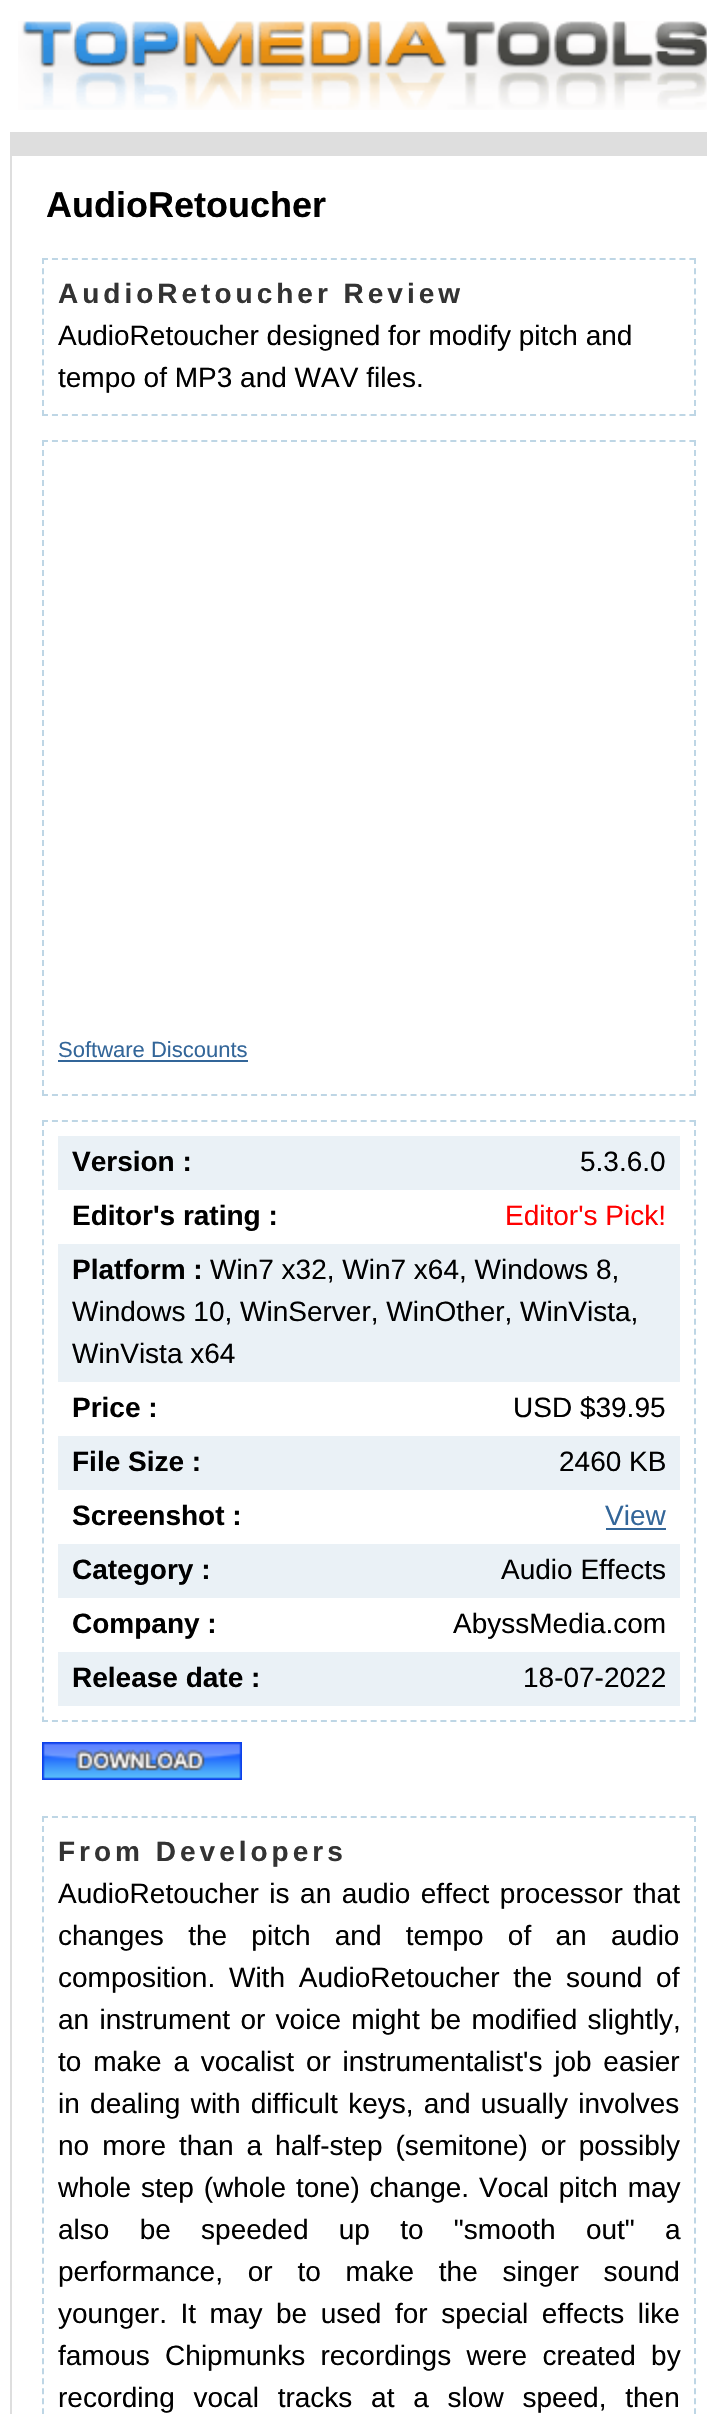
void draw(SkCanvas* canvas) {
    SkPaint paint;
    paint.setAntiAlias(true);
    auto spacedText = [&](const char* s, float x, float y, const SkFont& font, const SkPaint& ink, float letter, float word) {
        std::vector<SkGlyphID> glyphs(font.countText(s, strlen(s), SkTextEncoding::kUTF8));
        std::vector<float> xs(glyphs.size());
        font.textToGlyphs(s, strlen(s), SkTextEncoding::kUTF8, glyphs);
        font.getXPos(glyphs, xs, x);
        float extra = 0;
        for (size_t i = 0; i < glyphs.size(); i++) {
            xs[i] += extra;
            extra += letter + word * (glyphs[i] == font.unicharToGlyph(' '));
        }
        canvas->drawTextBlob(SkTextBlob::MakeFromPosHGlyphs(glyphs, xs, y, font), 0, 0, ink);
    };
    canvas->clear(0xFFFFFFFF);
    canvas->drawImageRect(SkImages::DeferredFromEncodedData(SkData::MakeFromFileName("img1.png")), SkRect::MakeXYWH(18, 21, 689, 89), SkSamplingOptions());
    paint.setColor(0xFFDEDEDE);
    canvas->drawRect(SkRect::MakeXYWH(12, 132, 695, 24), paint);
    canvas->drawRect(SkRect::MakeXYWH(10, 132, 2, 2282), paint);
    SkFont font1(fontMgr->matchFamilyStyle("Liberation Sans", SkFontStyle::Bold()), 36);
    font1.setSubpixel(true);
    paint.setColor(0xFF000000);
    canvas->drawString("AudioRetoucher", 46, 217, font1, paint);
    paint.setStyle(SkPaint::kStroke_Style);
    paint.setStrokeWidth(2);
    paint.setColor(0xFFBED6E5);
    paint.setPathEffect(SkDashPathEffect::Make({{6, 3.96f}}, 0));
    canvas->drawPath(SkPathBuilder().moveTo(42, 259).lineTo(696, 259).detach(), paint);
    paint.setPathEffect(nullptr);
    paint.setPathEffect(SkDashPathEffect::Make({{6, 4.14f}}, 0));
    canvas->drawPath(SkPathBuilder().moveTo(695, 258).lineTo(695, 416).detach(), paint);
    paint.setPathEffect(nullptr);
    paint.setPathEffect(SkDashPathEffect::Make({{6, 3.96f}}, 0));
    canvas->drawPath(SkPathBuilder().moveTo(42, 415).lineTo(696, 415).detach(), paint);
    paint.setPathEffect(nullptr);
    paint.setPathEffect(SkDashPathEffect::Make({{6, 4.14f}}, 0));
    canvas->drawPath(SkPathBuilder().moveTo(43, 258).lineTo(43, 416).detach(), paint);
    paint.setPathEffect(nullptr);
    SkFont font2(fontMgr->matchFamilyStyle("Liberation Sans", SkFontStyle::Bold()), 28);
    font2.setSubpixel(true);
    paint.setStyle(SkPaint::kFill_Style);
    paint.setColor(0xFF333333);
    spacedText("AudioRetoucher Review", 58, 303, font2, paint, 4, 0);
    SkFont font3(fontMgr->matchFamilyStyle("Liberation Sans", SkFontStyle::Normal()), 28);
    font3.setSubpixel(true);
    paint.setColor(0xFF000000);
    canvas->drawString("AudioRetoucher designed for modify pitch and", 58, 345, font3, paint);
    canvas->drawString("tempo of MP3 and WAV files.", 58, 387, font3, paint);
    paint.setStyle(SkPaint::kStroke_Style);
    paint.setColor(0xFFBED6E5);
    paint.setPathEffect(SkDashPathEffect::Make({{6, 3.96f}}, 0));
    canvas->drawPath(SkPathBuilder().moveTo(42, 441).lineTo(696, 441).detach(), paint);
    paint.setPathEffect(nullptr);
    paint.setPathEffect(SkDashPathEffect::Make({{6, 4}}, 0));
    canvas->drawPath(SkPathBuilder().moveTo(695, 440).lineTo(695, 1096).detach(), paint);
    paint.setPathEffect(nullptr);
    paint.setPathEffect(SkDashPathEffect::Make({{6, 3.96f}}, 0));
    canvas->drawPath(SkPathBuilder().moveTo(42, 1095).lineTo(696, 1095).detach(), paint);
    paint.setPathEffect(nullptr);
    paint.setPathEffect(SkDashPathEffect::Make({{6, 4}}, 0));
    canvas->drawPath(SkPathBuilder().moveTo(43, 440).lineTo(43, 1096).detach(), paint);
    paint.setPathEffect(nullptr);
    SkFont font4(fontMgr->matchFamilyStyle("Liberation Sans", SkFontStyle::Normal()), 22);
    font4.setSubpixel(true);
    paint.setStyle(SkPaint::kFill_Style);
    paint.setColor(0xFF336699);
    canvas->drawString("Software Discounts", 58, 1057, font4, paint);
    canvas->drawRect(SkRect::MakeXYWH(58, 1060, 190, 2), paint);
    paint.setStyle(SkPaint::kStroke_Style);
    paint.setColor(0xFFBED6E5);
    paint.setPathEffect(SkDashPathEffect::Make({{6, 3.96f}}, 0));
    canvas->drawPath(SkPathBuilder().moveTo(42, 1121).lineTo(696, 1121).detach(), paint);
    paint.setPathEffect(nullptr);
    paint.setPathEffect(SkDashPathEffect::Make({{6, 3.94f}}, 0));
    canvas->drawPath(SkPathBuilder().moveTo(695, 1120).lineTo(695, 1722).detach(), paint);
    paint.setPathEffect(nullptr);
    paint.setPathEffect(SkDashPathEffect::Make({{6, 3.96f}}, 0));
    canvas->drawPath(SkPathBuilder().moveTo(42, 1721).lineTo(696, 1721).detach(), paint);
    paint.setPathEffect(nullptr);
    paint.setPathEffect(SkDashPathEffect::Make({{6, 3.94f}}, 0));
    canvas->drawPath(SkPathBuilder().moveTo(43, 1120).lineTo(43, 1722).detach(), paint);
    paint.setPathEffect(nullptr);
    paint.setStyle(SkPaint::kFill_Style);
    paint.setColor(0xFFEAF1F6);
    canvas->drawRect(SkRect::MakeXYWH(58, 1136, 622, 54), paint);
    paint.setColor(0xFF000000);
    canvas->drawString("Version :", 72, 1171, font2, paint);
    canvas->drawString("5.3.6.0", 580, 1171, font3, paint);
    canvas->drawString("Editor's rating :", 72, 1225, font2, paint);
    paint.setColor(0xFFFF0000);
    canvas->drawString("Editor's Pick!", 505, 1225, font3, paint);
    paint.setColor(0xFFEAF1F6);
    canvas->drawRect(SkRect::MakeXYWH(58, 1244, 622, 138), paint);
    paint.setColor(0xFF000000);
    canvas->drawString("Platform :", 72, 1279, font2, paint);
    canvas->drawString("Win7 x32, Win7 x64, Windows 8,", 210, 1279, font3, paint);
    canvas->drawString("Windows 10, WinServer, WinOther, WinVista,", 72, 1321, font3, paint);
    canvas->drawString("WinVista x64", 72, 1363, font3, paint);
    canvas->drawString("Price :", 72, 1417, font2, paint);
    canvas->drawString("USD $39.95", 513, 1417, font3, paint);
    paint.setColor(0xFFEAF1F6);
    canvas->drawRect(SkRect::MakeXYWH(58, 1436, 622, 54), paint);
    paint.setColor(0xFF000000);
    canvas->drawString("File Size :", 72, 1471, font2, paint);
    canvas->drawString("2460 KB", 559, 1471, font3, paint);
    canvas->drawString("Screenshot :", 72, 1525, font2, paint);
    paint.setColor(0xFF336699);
    canvas->drawString("View", 605, 1525, font3, paint);
    canvas->drawRect(SkRect::MakeXYWH(606, 1528, 60, 2), paint);
    paint.setColor(0xFFEAF1F6);
    canvas->drawRect(SkRect::MakeXYWH(58, 1544, 622, 54), paint);
    paint.setColor(0xFF000000);
    canvas->drawString("Category :", 72, 1579, font2, paint);
    canvas->drawString("Audio Effects", 501, 1579, font3, paint);
    canvas->drawString("Company :", 72, 1633, font2, paint);
    canvas->drawString("AbyssMedia.com", 453, 1633, font3, paint);
    paint.setColor(0xFFEAF1F6);
    canvas->drawRect(SkRect::MakeXYWH(58, 1652, 622, 54), paint);
    paint.setColor(0xFF000000);
    canvas->drawString("Release date :", 72, 1687, font2, paint);
    canvas->drawString("18-07-2022", 523, 1687, font3, paint);
    canvas->drawImageRect(SkImages::DeferredFromEncodedData(SkData::MakeFromFileName("img2.png")), SkRect::MakeXYWH(42, 1742, 200, 38), SkSamplingOptions());
    paint.setStyle(SkPaint::kStroke_Style);
    paint.setColor(0xFFBED6E5);
    paint.setPathEffect(SkDashPathEffect::Make({{6, 3.96f}}, 0));
    canvas->drawPath(SkPathBuilder().moveTo(42, 1817).lineTo(696, 1817).detach(), paint);
    paint.setPathEffect(nullptr);
    paint.setPathEffect(SkDashPathEffect::Make({{6, 4.04f}}, 0));
    canvas->drawPath(SkPathBuilder().moveTo(695, 1816).lineTo(695, 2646).detach(), paint);
    paint.setPathEffect(nullptr);
    paint.setPathEffect(SkDashPathEffect::Make({{6, 4.04f}}, 0));
    canvas->drawPath(SkPathBuilder().moveTo(43, 1816).lineTo(43, 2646).detach(), paint);
    paint.setPathEffect(nullptr);
    paint.setStyle(SkPaint::kFill_Style);
    paint.setColor(0xFF333333);
    spacedText("From Developers", 58, 1861, font2, paint, 4, 0);
    paint.setColor(0xFF000000);
    spacedText("AudioRetoucher is an audio effect processor that", 58, 1903, font3, paint, 0, 2.75f);
    spacedText("changes the pitch and tempo of an audio", 58, 1945, font3, paint, 0, 16.5f);
    spacedText("composition. With AudioRetoucher the sound of", 58, 1987, font3, paint, 0, 6);
    spacedText("an instrument or voice might be modified slightly,", 58, 2029, font3, paint, 0, 2.5f);
    spacedText("to make a vocalist or instrumentalist's job easier", 58, 2071, font3, paint, 0, 4);
    spacedText("in dealing with difficult keys, and usually involves", 58, 2113, font3, paint, 0, 2.5f);
    spacedText("no more than a half-step (semitone) or possibly", 58, 2155, font3, paint, 0, 5.25f);
    spacedText("whole step (whole tone) change. Vocal pitch may", 58, 2197, font3, paint, 0, 2);
    spacedText("also be speeded up to \"smooth out\" a", 58, 2239, font3, paint, 0, 22.5f);
    spacedText("performance, or to make the singer sound", 58, 2281, font3, paint, 0, 17);
    spacedText("younger. It may be used for special effects like", 58, 2323, font3, paint, 0, 5.75f);
    spacedText("famous Chipmunks recordings were created by", 58, 2365, font3, paint, 0, 7.5f);
    spacedText("recording vocal tracks at a slow speed, then", 58, 2407, font3, paint, 0, 11);
}
